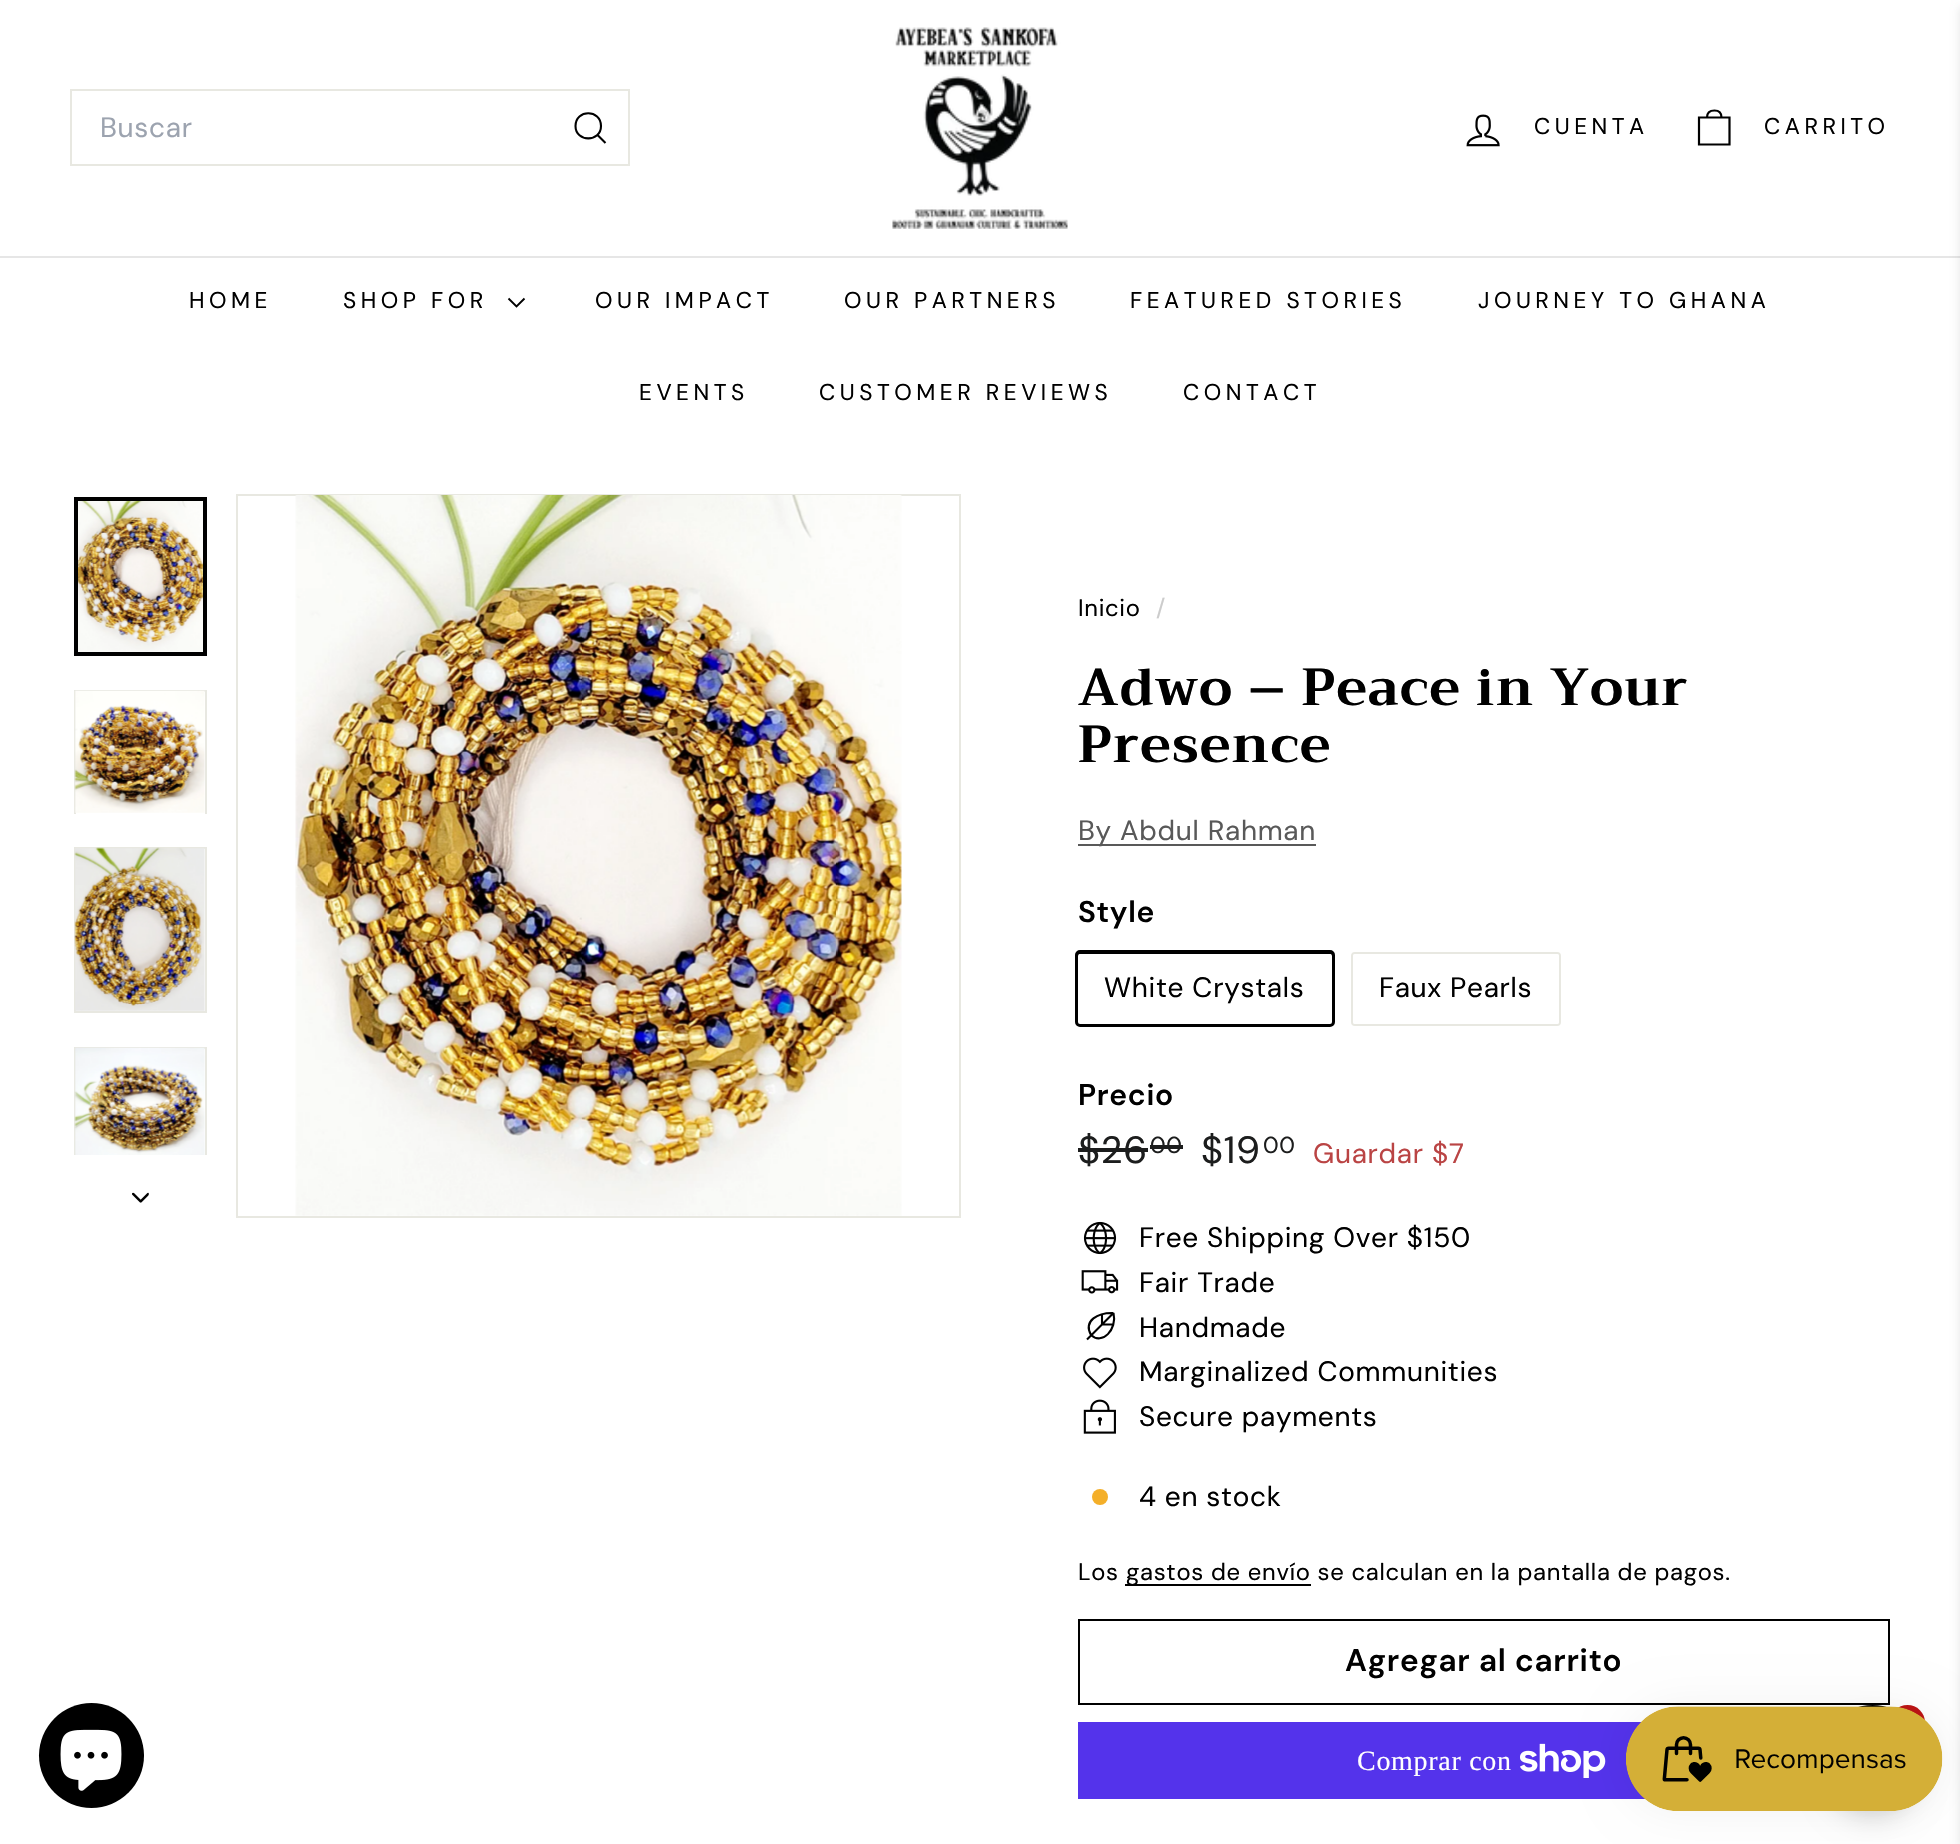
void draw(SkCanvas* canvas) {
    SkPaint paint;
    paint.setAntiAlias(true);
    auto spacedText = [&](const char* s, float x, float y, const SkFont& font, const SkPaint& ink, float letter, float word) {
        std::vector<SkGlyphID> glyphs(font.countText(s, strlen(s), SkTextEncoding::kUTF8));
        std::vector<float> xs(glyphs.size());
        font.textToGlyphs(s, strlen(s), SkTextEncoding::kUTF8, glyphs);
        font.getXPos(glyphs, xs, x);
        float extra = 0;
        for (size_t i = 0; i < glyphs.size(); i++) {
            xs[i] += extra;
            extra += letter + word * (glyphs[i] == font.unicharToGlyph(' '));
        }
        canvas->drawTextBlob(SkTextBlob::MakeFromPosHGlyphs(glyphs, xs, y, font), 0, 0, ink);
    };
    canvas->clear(0xFFFFFFFF);
    paint.setColor(0xFFE6E6E6);
    canvas->drawRect(SkRect::MakeXYWH(0, 256, 1960, 2), paint);
    paint.setColor(0x1A000000);
    paint.setMaskFilter(SkMaskFilter::MakeBlur(kNormal_SkBlurStyle, 5));
    canvas->drawRect(SkRect::MakeXYWH(1960, 7, 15, 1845), paint);
    paint.setMaskFilter(nullptr);
    paint.setStyle(SkPaint::kStroke_Style);
    paint.setStrokeWidth(2);
    paint.setColor(0xFF000000);
    canvas->drawRect(SkRect::MakeXYWH(1079, 1620, 810, 84), paint);
    paint.setStyle(SkPaint::kFill_Style);
    paint.setColor(0x0D000000);
    paint.setMaskFilter(SkMaskFilter::MakeBlur(kNormal_SkBlurStyle, 5));
    canvas->drawRoundRect(SkRect::MakeXYWH(1824, 1715, 98, 98), 49, 49, paint);
    paint.setMaskFilter(nullptr);
    paint.setColor(0x1A000000);
    paint.setMaskFilter(SkMaskFilter::MakeBlur(kNormal_SkBlurStyle, 13));
    canvas->drawRoundRect(SkRect::MakeXYWH(1825, 1727, 95, 95), 47.5f, 47.5f, paint);
    paint.setMaskFilter(nullptr);
    paint.setColor(0xFF000000);
    canvas->drawCircle(1872.5f, 1757.5f, 52.5f, paint);
    paint.setColor(0xFFBC1414);
    canvas->drawCircle(1907.5f, 1722.5f, 17.5f, paint);
    paint.setStyle(SkPaint::kStroke_Style);
    paint.setColor(0xFFE8E8E1);
    canvas->drawRect(SkRect::MakeXYWH(71, 90, 558, 75), paint);
    SkFont font1(fontMgr->matchFamilyStyle("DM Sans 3", SkFontStyle::Normal()), 28);
    font1.setSubpixel(true);
    paint.setStyle(SkPaint::kFill_Style);
    paint.setColor(0xFF9CA3AF);
    spacedText("Buscar", 100, 137, font1, paint, 0.7f, 0);
    paint.setStyle(SkPaint::kStroke_Style);
    paint.setStrokeWidth(2.1f);
    paint.setColor(0xFF000000);
    canvas->drawPath(SkPathBuilder().moveTo(601, 126).cubicTo(601, 142.5f, 575.5f, 142.5f, 575.5f, 126).cubicTo(575.5f, 109, 601, 109, 601, 126).moveTo(605.5f, 143).lineTo(597.5f, 135).detach(), paint);
    canvas->drawImageRect(SkImages::DeferredFromEncodedData(SkData::MakeFromFileName("img1.png")), SkRect::MakeXYWH(892, 27, 176, 202), SkSamplingOptions());
    canvas->drawImageRect(SkImages::DeferredFromEncodedData(SkData::MakeFromFileName("img2.png")), SkRect::MakeXYWH(1466, 114, 34, 33), SkSamplingOptions());
    SkFont font2(fontMgr->matchFamilyStyle("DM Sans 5", SkFontStyle::Normal()), 22.75f);
    font2.setSubpixel(true);
    paint.setStyle(SkPaint::kFill_Style);
    spacedText("CUENTA", 1534, 134, font2, paint, 4.5f, 0);
    paint.setStyle(SkPaint::kStroke_Style);
    paint.setStrokeWidth(2.2f);
    canvas->drawPath(SkPathBuilder().moveTo(1707, 117.5f).cubicTo(1707, 112, 1710.5f, 110.5f, 1714.5f, 110.5f).cubicTo(1718.5f, 110.5f, 1721.5f, 112, 1721.5f, 117.5f).moveTo(1699, 117.5f).lineTo(1729.5f, 117.5f).lineTo(1729.5f, 144.5f).lineTo(1699, 144.5f).close().detach(), paint);
    paint.setStyle(SkPaint::kFill_Style);
    spacedText("CARRITO", 1764, 134, font2, paint, 4.5f, 0);
    spacedText("HOME", 189, 308, font2, paint, 4.5f, 0);
    spacedText("SHOP FOR", 343, 308, font2, paint, 4.5f, 0);
    paint.setStyle(SkPaint::kStroke_Style);
    paint.setStrokeWidth(1.9f);
    canvas->drawPath(SkPathBuilder().moveTo(508.5f, 298.5f).lineTo(516.5f, 306.5f).lineTo(524.5f, 298.5f).detach(), paint);
    paint.setStyle(SkPaint::kFill_Style);
    spacedText("OUR IMPACT", 595, 308, font2, paint, 4.5f, 0);
    spacedText("OUR PARTNERS", 844, 308, font2, paint, 4.5f, 0);
    spacedText("FEATURED STORIES", 1130, 308, font2, paint, 4.5f, 0);
    spacedText("JOURNEY TO GHANA", 1478, 308, font2, paint, 4.5f, 0);
    spacedText("EVENTS", 639, 400, font2, paint, 4.5f, 0);
    spacedText("CUSTOMER REVIEWS", 819, 400, font2, paint, 4.5f, 0);
    spacedText("CONTACT", 1183, 400, font2, paint, 4.5f, 0);
    canvas->drawImageRect(SkImages::DeferredFromEncodedData(SkData::MakeFromFileName("img3.png")), SkRect::MakeXYWH(78, 501, 125, 151), SkSamplingOptions());
    paint.setStyle(SkPaint::kStroke_Style);
    paint.setStrokeWidth(4);
    canvas->drawRect(SkRect::MakeXYWH(76, 499, 129, 155), paint);
    canvas->save();
    canvas->clipRect(SkRect::MakeXYWH(74, 690, 133, 124));
    paint.setStrokeWidth(2);
    paint.setColor(0xFFE8E8E1);
    canvas->drawRect(SkRect::MakeXYWH(75, 691, 131, 124), paint);
    canvas->restore();
    canvas->drawImageRect(SkImages::DeferredFromEncodedData(SkData::MakeFromFileName("img4.png")), SkRect::MakeXYWH(74, 690, 131, 123), SkSamplingOptions());
    canvas->drawRect(SkRect::MakeXYWH(75, 848, 131, 164), paint);
    canvas->drawImageRect(SkImages::DeferredFromEncodedData(SkData::MakeFromFileName("img5.png")), SkRect::MakeXYWH(74, 847, 131, 164), SkSamplingOptions());
    canvas->drawRect(SkRect::MakeXYWH(75, 1048, 131, 124), paint);
    canvas->drawImageRect(SkImages::DeferredFromEncodedData(SkData::MakeFromFileName("img6.png")), SkRect::MakeXYWH(74, 1047, 131, 108), SkSamplingOptions());
    paint.setStyle(SkPaint::kFill_Style);
    paint.setColor(0xFFFFFFFF);
    canvas->drawRect(SkRect::MakeXYWH(74, 1155, 133, 18), paint);
    canvas->drawImageRect(SkImages::DeferredFromEncodedData(SkData::MakeFromFileName("img7.png")), SkRect::MakeXYWH(132, 1192, 17, 11), SkSamplingOptions());
    paint.setStyle(SkPaint::kStroke_Style);
    paint.setColor(0xFFE8E8E1);
    canvas->drawRect(SkRect::MakeXYWH(237, 495, 723, 722), paint);
    canvas->drawImageRect(SkImages::DeferredFromEncodedData(SkData::MakeFromFileName("img8.png")), SkRect::MakeXYWH(295, 495, 607, 721), SkSamplingOptions());
    SkFont font3(fontMgr->matchFamilyStyle("DM Sans", SkFontStyle::Normal()), 23.8f);
    font3.setSubpixel(true);
    paint.setStyle(SkPaint::kFill_Style);
    paint.setColor(0xFF000000);
    spacedText("Inicio", 1078, 616, font3, paint, 0.7f, 0);
    paint.setColor(0xFFCCCCCC);
    spacedText("/", 1156, 616, font3, paint, 0.7f, 0);
    SkFont font4(fontMgr->matchFamilyStyle("Trirong", SkFontStyle::Bold()), 52);
    font4.setSubpixel(true);
    paint.setColor(0xFF000000);
    spacedText("Adwo – Peace in Your", 1078, 705, font4, paint, 1.3f, 0);
    spacedText("Presence", 1078, 762, font4, paint, 1.3f, 0);
    paint.setColor(0xFF595959);
    canvas->drawRect(SkRect::MakeXYWH(1078, 844, 238, 2), paint);
    spacedText("By Abdul Rahman", 1078, 840, font1, paint, 0.7f, 0);
    SkFont font5(fontMgr->matchFamilyStyle("DM Sans", SkFontStyle(600, SkFontStyle::kNormal_Width, SkFontStyle::kUpright_Slant)), 30);
    font5.setSubpixel(true);
    paint.setColor(0xFF000000);
    spacedText("Style", 1078, 922, font5, paint, 0.7f, 0);
    paint.setStyle(SkPaint::kStroke_Style);
    paint.setStrokeWidth(4);
    canvas->drawRoundRect(SkRect::MakeXYWH(1077, 952, 256, 73), 3, 3, paint);
    paint.setStyle(SkPaint::kFill_Style);
    paint.setColor(0xFFFFFFFF);
    canvas->drawRoundRect(SkRect::MakeXYWH(1078, 954, 254, 70), 2, 2, paint);
    paint.setColor(0xFF000000);
    spacedText("White Crystals", 1104, 997, font1, paint, 0.7f, 0);
    paint.setStyle(SkPaint::kStroke_Style);
    paint.setStrokeWidth(2);
    paint.setColor(0xFFE8E8E1);
    canvas->drawRoundRect(SkRect::MakeXYWH(1352, 953, 208, 72), 3, 3, paint);
    paint.setStyle(SkPaint::kFill_Style);
    paint.setColor(0xFFFFFFFF);
    canvas->drawRoundRect(SkRect::MakeXYWH(1353, 954, 206, 70), 2, 2, paint);
    paint.setColor(0xFF000000);
    spacedText("Faux Pearls", 1379, 997, font1, paint, 0.7f, 0);
    spacedText("Precio", 1078, 1105, font5, paint, 0.7f, 0);
    SkFont font6(fontMgr->matchFamilyStyle("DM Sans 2", SkFontStyle::Normal()), 38);
    font6.setSubpixel(true);
    paint.setColor(0xFF1C1D1D);
    spacedText("$26", 1078, 1163, font6, paint, 0.7f, 0);
    canvas->drawRect(SkRect::MakeXYWH(1078, 1148, 70, 4), paint);
    SkFont font7(fontMgr->matchFamilyStyle("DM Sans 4", SkFontStyle::Normal()), 23);
    font7.setSubpixel(true);
    spacedText("00", 1150, 1153, font7, paint, 0.7f, 0);
    canvas->drawRect(SkRect::MakeXYWH(1150, 1145, 33, 4), paint);
    spacedText("$19", 1201, 1163, font6, paint, 0.7f, 0);
    spacedText("00", 1263, 1153, font7, paint, 0.7f, 0);
    paint.setColor(0xFFBA4444);
    spacedText("Guardar $7", 1313, 1163, font1, paint, 0.7f, 0);
    canvas->drawImageRect(SkImages::DeferredFromEncodedData(SkData::MakeFromFileName("img9.png")), SkRect::MakeXYWH(1083, 1221, 34, 34), SkSamplingOptions());
    paint.setColor(0xFF000000);
    spacedText("Free Shipping Over $150", 1139, 1247, font1, paint, 0.7f, 0);
    canvas->drawImageRect(SkImages::DeferredFromEncodedData(SkData::MakeFromFileName("img10.png")), SkRect::MakeXYWH(1081, 1270, 38, 24), SkSamplingOptions());
    spacedText("Fair Trade", 1139, 1292, font1, paint, 0.7f, 0);
    paint.setStyle(SkPaint::kStroke_Style);
    paint.setStrokeWidth(2.1f);
    canvas->drawPath(SkPathBuilder().moveTo(1113.5f, 1313).lineTo(1087, 1339.5f).moveTo(1102, 1314.5f).lineTo(1102, 1324.5f).lineTo(1113, 1324.5f).moveTo(1113.5f, 1313).cubicTo(1117.5f, 1329.5f, 1102, 1345.5f, 1091, 1335).cubicTo(1083, 1320.5f, 1098, 1312.5f, 1113.5f, 1313).detach(), paint);
    paint.setStyle(SkPaint::kFill_Style);
    spacedText("Handmade", 1139, 1337, font1, paint, 0.7f, 0);
    canvas->drawImageRect(SkImages::DeferredFromEncodedData(SkData::MakeFromFileName("img11.png")), SkRect::MakeXYWH(1083, 1357, 34, 32), SkSamplingOptions());
    spacedText("Marginalized Communities", 1139, 1381, font1, paint, 0.7f, 0);
    canvas->drawImageRect(SkImages::DeferredFromEncodedData(SkData::MakeFromFileName("img12.png")), SkRect::MakeXYWH(1083, 1399, 33, 35), SkSamplingOptions());
    spacedText("Secure payments", 1139, 1426, font1, paint, 0.7f, 0);
    paint.setColor(0xFFF4AF29);
    canvas->drawCircle(1100, 1497, 8, paint);
    paint.setColor(0xFF000000);
    spacedText("4 en stock", 1139, 1506, font1, paint, 0.7f, 0);
    spacedText("Los", 1078, 1580, font3, paint, 0.7f, 0);
    canvas->drawRect(SkRect::MakeXYWH(1125, 1584, 186, 2), paint);
    spacedText("gastos de envío se calculan en la pantalla de pagos.", 1126, 1580, font3, paint, 0.7f, 0);
    SkFont font8(fontMgr->matchFamilyStyle("DM Sans 2", SkFontStyle(600, SkFontStyle::kNormal_Width, SkFontStyle::kUpright_Slant)), 31.5f);
    font8.setSubpixel(true);
    spacedText("Agregar al carrito", 1345, 1671, font8, paint, 0.75f, 0);
    paint.setColor(0xFF5433EB);
    canvas->drawRect(SkRect::MakeXYWH(1078, 1722, 567, 77), paint);
    SkFont font9(fontMgr->matchFamilyStyle("Liberation Serif", SkFontStyle::Normal()), 28);
    font9.setSubpixel(true);
    paint.setColor(0xFFFFFFFF);
    spacedText("Comprar con", 1357, 1770, font9, paint, 0.7f, 0);
    canvas->drawImageRect(SkImages::DeferredFromEncodedData(SkData::MakeFromFileName("img13.png")), SkRect::MakeXYWH(1520, 1743, 86, 35), SkSamplingOptions());
    paint.setColor(0xFF000000);
    canvas->drawCircle(91.5f, 1755.5f, 52.5f, paint);
    canvas->drawImageRect(SkImages::DeferredFromEncodedData(SkData::MakeFromFileName("img14.png")), SkRect::MakeXYWH(60, 1729, 62, 62), SkSamplingOptions());
    paint.setColor(0x0D000000);
    paint.setMaskFilter(SkMaskFilter::MakeBlur(kNormal_SkBlurStyle, 22));
    canvas->drawRoundRect(SkRect::MakeXYWH(1626, 1706, 317, 105), 52.5f, 52.5f, paint);
    paint.setMaskFilter(nullptr);
    canvas->drawImageRect(SkImages::DeferredFromEncodedData(SkData::MakeFromFileName("img15.png")), SkRect::MakeXYWH(1626, 1706, 317, 105), SkSamplingOptions());
}
